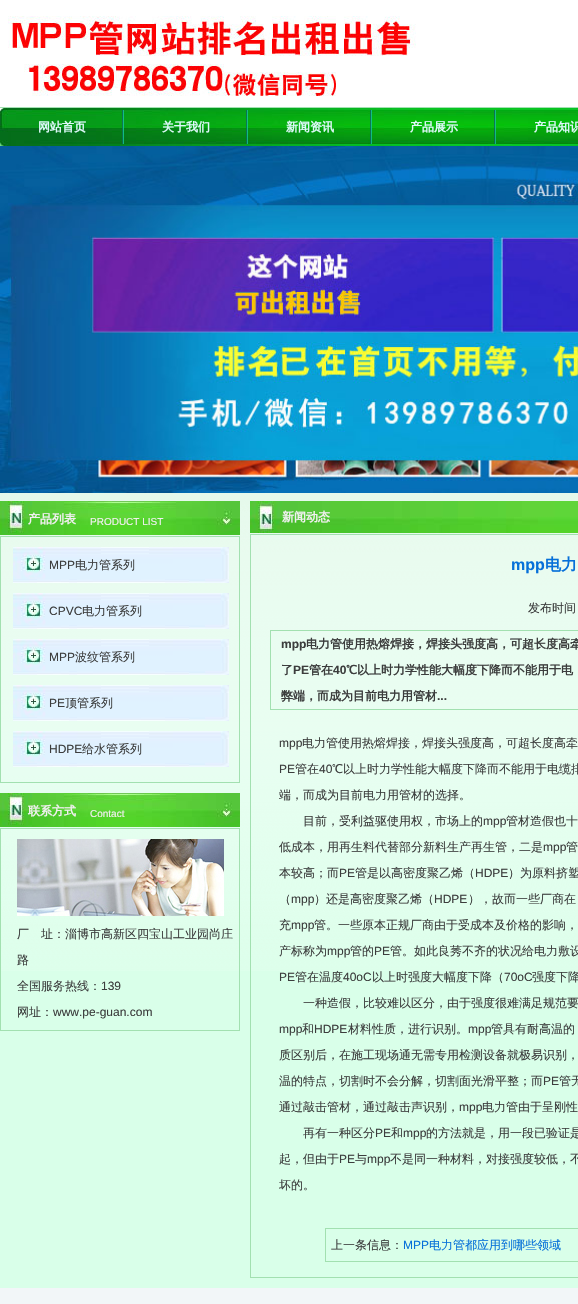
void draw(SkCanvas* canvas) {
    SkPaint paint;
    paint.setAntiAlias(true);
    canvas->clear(0xFFD9FFE9);
    canvas->drawImageRect(SkImages::DeferredFromEncodedData(SkData::MakeFromFileName("img1.png")), SkRect::MakeXYWH(0, 107, 578, 864), SkSamplingOptions());
    paint.setColor(0xFFFFFFFF);
    canvas->drawRect(SkRect::MakeXYWH(0, 0, 578, 107), paint);
    canvas->drawImageRect(SkImages::DeferredFromEncodedData(SkData::MakeFromFileName("img2.png")), SkRect::MakeXYWH(8, 16, 408, 80), SkSamplingOptions());
    canvas->drawImageRect(SkImages::DeferredFromEncodedData(SkData::MakeFromFileName("img3.png")), SkRect::MakeXYWH(0, 108, 578, 38), SkSamplingOptions());
    canvas->drawImageRect(SkImages::DeferredFromEncodedData(SkData::MakeFromFileName("img4.png")), SkRect::MakeXYWH(122, 110, 2, 34), SkSamplingOptions());
    SkFont font1(fontMgr->matchFamilyStyle("WenQuanYi Zen Hei", SkFontStyle::Bold()), 12);
    font1.setSubpixel(true);
    paint.setColor(0xFFDEF9FA);
    canvas->drawString("网站首页", 38, 131, font1, paint);
    canvas->drawImageRect(SkImages::DeferredFromEncodedData(SkData::MakeFromFileName("img4.png")), SkRect::MakeXYWH(246, 110, 2, 34), SkSamplingOptions());
    canvas->drawString("关于我们", 162, 131, font1, paint);
    canvas->drawImageRect(SkImages::DeferredFromEncodedData(SkData::MakeFromFileName("img4.png")), SkRect::MakeXYWH(370, 110, 2, 34), SkSamplingOptions());
    canvas->drawString("新闻资讯", 286, 131, font1, paint);
    canvas->drawImageRect(SkImages::DeferredFromEncodedData(SkData::MakeFromFileName("img4.png")), SkRect::MakeXYWH(494, 110, 2, 34), SkSamplingOptions());
    canvas->drawString("产品展示", 410, 131, font1, paint);
    canvas->drawString("产品知识", 534, 131, font1, paint);
    canvas->drawImageRect(SkImages::DeferredFromEncodedData(SkData::MakeFromFileName("img5.png")), SkRect::MakeXYWH(0, 146, 578, 347), SkSamplingOptions());
    canvas->drawImageRect(SkImages::DeferredFromEncodedData(SkData::MakeFromFileName("img6.png")), SkRect::MakeXYWH(0, 501, 240, 34), SkSamplingOptions());
    paint.setColor(0xFFF1F0F0);
    canvas->drawString("产品列表", 28, 523, font1, paint);
    SkFont font2(fontMgr->matchFamilyStyle("Liberation Sans", SkFontStyle::Normal()), 10);
    font2.setSubpixel(true);
    canvas->drawString("PRODUCT LIST", 90, 525, font2, paint);
    paint.setStyle(SkPaint::kStroke_Style);
    paint.setStrokeWidth(1);
    paint.setColor(0xFFA2E0B0);
    canvas->drawRect(SkRect::MakeXYWH(0.5f, 536.5f, 239, 246), paint);
    canvas->drawImageRect(SkImages::DeferredFromEncodedData(SkData::MakeFromFileName("img7.png")), SkRect::MakeXYWH(13, 547, 216, 36), SkSamplingOptions());
    SkFont font3(fontMgr->matchFamilyStyle("Liberation Sans", SkFontStyle::Normal()), 12);
    font3.setSubpixel(true);
    paint.setStyle(SkPaint::kFill_Style);
    paint.setColor(0xFF3C3D3D);
    canvas->drawString("MPP", 49, 569, font3, paint);
    SkFont font4(fontMgr->matchFamilyStyle("WenQuanYi Zen Hei", SkFontStyle(500, SkFontStyle::kNormal_Width, SkFontStyle::kUpright_Slant)), 12);
    font4.setSubpixel(true);
    canvas->drawString("电力管系列", 75, 569, font4, paint);
    canvas->drawImageRect(SkImages::DeferredFromEncodedData(SkData::MakeFromFileName("img7.png")), SkRect::MakeXYWH(13, 593, 216, 36), SkSamplingOptions());
    canvas->drawString("CPVC", 49, 615, font3, paint);
    canvas->drawString("电力管系列", 82, 615, font4, paint);
    canvas->drawImageRect(SkImages::DeferredFromEncodedData(SkData::MakeFromFileName("img7.png")), SkRect::MakeXYWH(13, 639, 216, 36), SkSamplingOptions());
    canvas->drawString("MPP", 49, 661, font3, paint);
    canvas->drawString("波纹管系列", 75, 661, font4, paint);
    canvas->drawImageRect(SkImages::DeferredFromEncodedData(SkData::MakeFromFileName("img7.png")), SkRect::MakeXYWH(13, 685, 216, 36), SkSamplingOptions());
    canvas->drawString("PE", 49, 707, font3, paint);
    canvas->drawString("顶管系列", 65, 707, font4, paint);
    canvas->drawImageRect(SkImages::DeferredFromEncodedData(SkData::MakeFromFileName("img7.png")), SkRect::MakeXYWH(13, 731, 216, 36), SkSamplingOptions());
    canvas->drawString("HDPE", 49, 753, font3, paint);
    canvas->drawString("给水管系列", 82, 753, font4, paint);
    canvas->drawImageRect(SkImages::DeferredFromEncodedData(SkData::MakeFromFileName("img6.png")), SkRect::MakeXYWH(0, 793, 240, 34), SkSamplingOptions());
    paint.setColor(0xFFF1F0F0);
    canvas->drawString("联系方式", 28, 815, font1, paint);
    canvas->drawString("Contact", 90, 817, font2, paint);
    paint.setStyle(SkPaint::kStroke_Style);
    paint.setColor(0xFFA2E0B0);
    canvas->drawRect(SkRect::MakeXYWH(0.5f, 828.5f, 239, 202), paint);
    canvas->drawImageRect(SkImages::DeferredFromEncodedData(SkData::MakeFromFileName("img8.png")), SkRect::MakeXYWH(17, 839, 207, 77), SkSamplingOptions());
    paint.setStyle(SkPaint::kFill_Style);
    paint.setColor(0xFF3C3D3D);
    canvas->drawString("厂　址：淄博市高新区四宝山工业园尚庄", 17, 938, font4, paint);
    canvas->drawString("路", 17, 964, font4, paint);
    canvas->drawString("全国服务热线：", 17, 990, font4, paint);
    canvas->drawString("139", 101, 990, font3, paint);
    canvas->drawString("网址：", 17, 1016, font4, paint);
    canvas->drawString("www.pe-guan.com", 53, 1016, font3, paint);
    canvas->drawImageRect(SkImages::DeferredFromEncodedData(SkData::MakeFromFileName("img9.png")), SkRect::MakeXYWH(250, 501, 328, 32), SkSamplingOptions());
    paint.setColor(0xFFF1F0F0);
    canvas->drawString("新闻动态", 282, 521, font1, paint);
    paint.setStyle(SkPaint::kStroke_Style);
    paint.setColor(0xFFA2E0B0);
    canvas->drawRect(SkRect::MakeXYWH(250.5f, 534.5f, 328, 743), paint);
    SkFont font5(fontMgr->matchFamilyStyle("Liberation Sans", SkFontStyle::Bold()), 16);
    font5.setSubpixel(true);
    paint.setStyle(SkPaint::kFill_Style);
    paint.setColor(0xFF0670D9);
    canvas->drawString("mpp", 511, 570, font5, paint);
    SkFont font6(fontMgr->matchFamilyStyle("WenQuanYi Zen Hei", SkFontStyle::Bold()), 16);
    font6.setSubpixel(true);
    canvas->drawString("电力", 545, 570, font6, paint);
    paint.setColor(0xFF3C3D3D);
    canvas->drawString("发布时间", 528, 612, font4, paint);
    paint.setStyle(SkPaint::kStroke_Style);
    paint.setColor(0xFFA2E0B0);
    canvas->drawRect(SkRect::MakeXYWH(270.5f, 630.5f, 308, 79), paint);
    SkFont font7(fontMgr->matchFamilyStyle("Liberation Sans", SkFontStyle::Bold()), 12);
    font7.setSubpixel(true);
    paint.setStyle(SkPaint::kFill_Style);
    paint.setColor(0xFF3C3D3D);
    canvas->drawString("mpp", 281, 648, font7, paint);
    canvas->drawString("电力管使用热熔焊接，焊接头强度高，可超长度高牵", 306, 648, font1, paint);
    canvas->drawString("了", 281, 674, font1, paint);
    canvas->drawString("PE", 293, 674, font7, paint);
    canvas->drawString("管在", 309, 674, font1, paint);
    canvas->drawString("40", 333, 674, font7, paint);
    canvas->drawString("℃以上时力学性能大幅度下降而不能用于电", 346, 674, font1, paint);
    canvas->drawString("弊端，而成为目前电力用管材", 281, 700, font1, paint);
    canvas->drawString("...", 437, 700, font7, paint);
    canvas->drawString("mpp", 279, 747, font3, paint);
    canvas->drawString("电力管使用热熔焊接，焊接头强度高，可超长度高牵", 302, 747, font4, paint);
    canvas->drawString("PE", 279, 773, font3, paint);
    canvas->drawString("管在", 295, 773, font4, paint);
    canvas->drawString("40", 319, 773, font3, paint);
    canvas->drawString("℃以上时力学性能大幅度下降而不能用于电缆排", 332, 773, font4, paint);
    canvas->drawString("端，而成为目前电力用管材的选择。", 279, 799, font4, paint);
    canvas->drawString("目前，受利益驱使用权，市场上的", 303, 825, font4, paint);
    canvas->drawString("mpp", 483, 825, font3, paint);
    canvas->drawString("管材造假也十", 506, 825, font4, paint);
    canvas->drawString("低成本，用再生料代替部分新料生产再生管，二是", 279, 851, font4, paint);
    canvas->drawString("mpp", 543, 851, font3, paint);
    canvas->drawString("管", 566, 851, font4, paint);
    canvas->drawString("本较高；而", 279, 877, font4, paint);
    canvas->drawString("PE", 339, 877, font3, paint);
    canvas->drawString("管是以高密度聚乙烯（", 355, 877, font4, paint);
    canvas->drawString("HDPE", 475, 877, font3, paint);
    canvas->drawString("）为原料挤塑", 508, 877, font4, paint);
    canvas->drawString("（", 279, 903, font4, paint);
    canvas->drawString("mpp", 291, 903, font3, paint);
    canvas->drawString("）还是高密度聚乙烯（", 314, 903, font4, paint);
    canvas->drawString("HDPE", 434, 903, font3, paint);
    canvas->drawString("），故而一些厂商在", 468, 903, font4, paint);
    canvas->drawString("充", 279, 929, font4, paint);
    canvas->drawString("mpp", 291, 929, font3, paint);
    canvas->drawString("管。一些原本正规厂商由于受成本及价格的影响，", 314, 929, font4, paint);
    canvas->drawString("产标称为", 279, 955, font4, paint);
    canvas->drawString("mpp", 327, 955, font3, paint);
    canvas->drawString("管的", 350, 955, font4, paint);
    canvas->drawString("PE", 374, 955, font3, paint);
    canvas->drawString("管。如此良莠不齐的状况给电力敷设", 390, 955, font4, paint);
    canvas->drawString("PE", 279, 981, font3, paint);
    canvas->drawString("管在温度", 295, 981, font4, paint);
    canvas->drawString("40oС", 343, 981, font3, paint);
    canvas->drawString("以上时强度大幅度下降（", 372, 981, font4, paint);
    canvas->drawString("70oС", 504, 981, font3, paint);
    canvas->drawString("强度下降", 532, 981, font4, paint);
    canvas->drawString("一种造假，比较难以区分，由于强度很难满足规范要", 303, 1007, font4, paint);
    canvas->drawString("mpp", 279, 1033, font3, paint);
    canvas->drawString("和", 302, 1033, font4, paint);
    canvas->drawString("HDPE", 314, 1033, font3, paint);
    canvas->drawString("材料性质，进行识别。", 348, 1033, font4, paint);
    canvas->drawString("mpp", 468, 1033, font3, paint);
    canvas->drawString("管具有耐高温的", 491, 1033, font4, paint);
    canvas->drawString("质区别后，在施工现场通无需专用检测设备就极易识别，", 279, 1059, font4, paint);
    canvas->drawString("温的特点，切割时不会分解，切割面光滑平整；而", 279, 1085, font4, paint);
    canvas->drawString("PE", 543, 1085, font3, paint);
    canvas->drawString("管无", 559, 1085, font4, paint);
    canvas->drawString("通过敲击管材，通过敲击声识别，", 279, 1111, font4, paint);
    canvas->drawString("mpp", 459, 1111, font3, paint);
    canvas->drawString("电力管由于呈刚性", 482, 1111, font4, paint);
    canvas->drawString("再有一种区分", 303, 1137, font4, paint);
    canvas->drawString("PE", 375, 1137, font3, paint);
    canvas->drawString("和", 391, 1137, font4, paint);
    canvas->drawString("mpp", 403, 1137, font3, paint);
    canvas->drawString("的方法就是，用一段已验证是", 426, 1137, font4, paint);
    canvas->drawString("起，但由于", 279, 1163, font4, paint);
    canvas->drawString("PE", 339, 1163, font3, paint);
    canvas->drawString("与", 355, 1163, font4, paint);
    canvas->drawString("mpp", 367, 1163, font3, paint);
    canvas->drawString("不是同一种材料，对接强度较低，不", 390, 1163, font4, paint);
    canvas->drawString("坏的。", 279, 1189, font4, paint);
    paint.setStyle(SkPaint::kStroke_Style);
    paint.setColor(0xFFA2E0B0);
    canvas->drawRect(SkRect::MakeXYWH(325.5f, 1228.5f, 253, 33), paint);
    paint.setStyle(SkPaint::kFill_Style);
    paint.setColor(0xFF3C3D3D);
    canvas->drawString("上一条信息：", 331, 1249, font4, paint);
    paint.setColor(0xFF0670D9);
    canvas->drawString("MPP", 403, 1249, font3, paint);
    canvas->drawString("电力管都应用到哪些领域", 429, 1249, font4, paint);
    paint.setColor(0xFFF2F6F8);
    canvas->drawRect(SkRect::MakeXYWH(0, 1288, 578, 16), paint);
}
